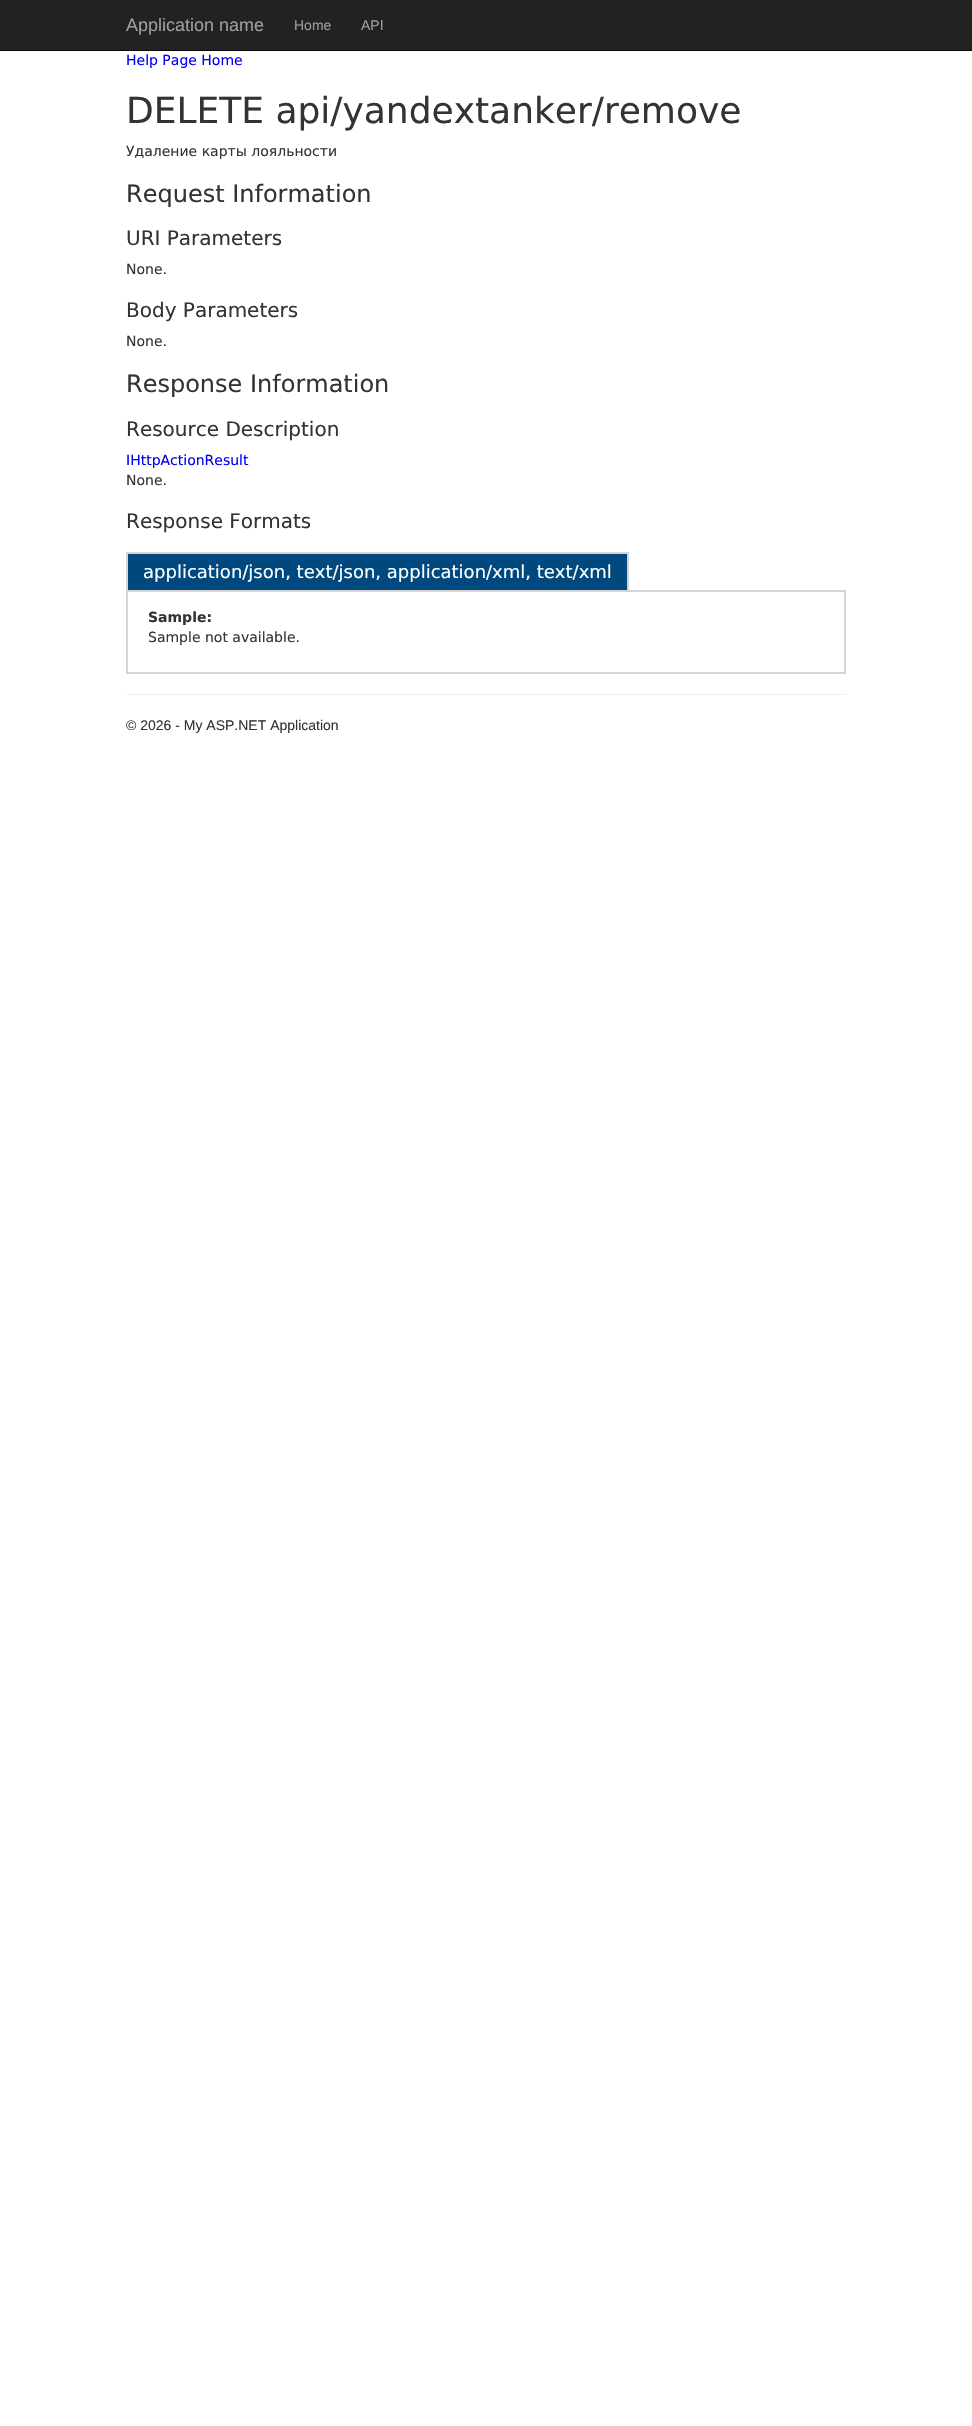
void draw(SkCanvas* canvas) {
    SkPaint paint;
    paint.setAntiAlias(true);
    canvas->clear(0xFFFFFFFF);
    paint.setColor(0xFF222222);
    canvas->drawRect(SkRect::MakeXYWH(0, 0, 972, 50), paint);
    paint.setColor(0xFF080808);
    canvas->drawRect(SkRect::MakeXYWH(0, 50, 972, 1), paint);
    SkFont font1(fontMgr->matchFamilyStyle("Liberation Sans", SkFontStyle::Normal()), 18);
    font1.setSubpixel(true);
    paint.setColor(0xFF9D9D9D);
    canvas->drawString("Application name", 126, 31, font1, paint);
    SkFont font2(fontMgr->matchFamilyStyle("Liberation Sans", SkFontStyle::Normal()), 14);
    font2.setSubpixel(true);
    canvas->drawString("Home", 294, 30, font2, paint);
    canvas->drawString("API", 361, 30, font2, paint);
    SkFont font3(fontMgr->matchFamilyStyle("DejaVu Sans", SkFontStyle::Normal()), 14);
    font3.setSubpixel(true);
    paint.setColor(0xFF0000EE);
    canvas->drawString("Help Page Home", 126, 65, font3, paint);
    SkFont font4(fontMgr->matchFamilyStyle("DejaVu Sans", SkFontStyle::Normal()), 36);
    font4.setSubpixel(true);
    paint.setColor(0xFF333333);
    canvas->drawString("DELETE api/yandextanker/remove", 126, 123, font4, paint);
    canvas->drawString("Удаление карты лояльности", 126, 156, font3, paint);
    SkFont font5(fontMgr->matchFamilyStyle("DejaVu Sans", SkFontStyle::Normal()), 24);
    font5.setSubpixel(true);
    canvas->drawString("Request Information", 126, 202, font5, paint);
    SkFont font6(fontMgr->matchFamilyStyle("DejaVu Sans", SkFontStyle::Normal()), 20);
    font6.setSubpixel(true);
    canvas->drawString("URI Parameters", 126, 245, font6, paint);
    canvas->drawString("None.", 126, 274, font3, paint);
    canvas->drawString("Body Parameters", 126, 317, font6, paint);
    canvas->drawString("None.", 126, 346, font3, paint);
    canvas->drawString("Response Information", 126, 392, font5, paint);
    canvas->drawString("Resource Description", 126, 436, font6, paint);
    paint.setColor(0xFF0000EE);
    canvas->drawString("IHttpActionResult", 126, 465, font3, paint);
    paint.setColor(0xFF333333);
    canvas->drawString("None.", 126, 485, font3, paint);
    canvas->drawString("Response Formats", 126, 528, font6, paint);
    paint.setColor(0xFF00497E);
    canvas->drawRect(SkRect::MakeXYWH(128, 554, 499, 36), paint);
    paint.setColor(0xFFD4D4D4);
    canvas->drawRect(SkRect::MakeXYWH(126, 552, 503, 2), paint);
    canvas->drawRect(SkRect::MakeXYWH(627, 552, 2, 38), paint);
    canvas->drawRect(SkRect::MakeXYWH(126, 552, 2, 38), paint);
    SkFont font7(fontMgr->matchFamilyStyle("DejaVu Sans", SkFontStyle::Normal()), 18);
    font7.setSubpixel(true);
    paint.setColor(0xFFFFFFFF);
    canvas->drawString("application/json, text/json, application/xml, text/xml", 143, 578, font7, paint);
    paint.setStyle(SkPaint::kStroke_Style);
    paint.setStrokeWidth(2);
    paint.setColor(0xFFD4D4D4);
    canvas->drawRect(SkRect::MakeXYWH(127, 591, 718, 82), paint);
    SkFont font8(fontMgr->matchFamilyStyle("DejaVu Sans", SkFontStyle::Bold()), 14);
    font8.setSubpixel(true);
    paint.setStyle(SkPaint::kFill_Style);
    paint.setColor(0xFF333333);
    canvas->drawString("Sample:", 148, 622, font8, paint);
    canvas->drawString("Sample not available.", 148, 642, font3, paint);
    paint.setColor(0xFFEEEEEE);
    canvas->drawRect(SkRect::MakeXYWH(126, 694, 720, 1), paint);
    paint.setColor(0xFF333333);
    canvas->drawString("© 2026 - My ASP.NET Application", 126, 730, font2, paint);
}
